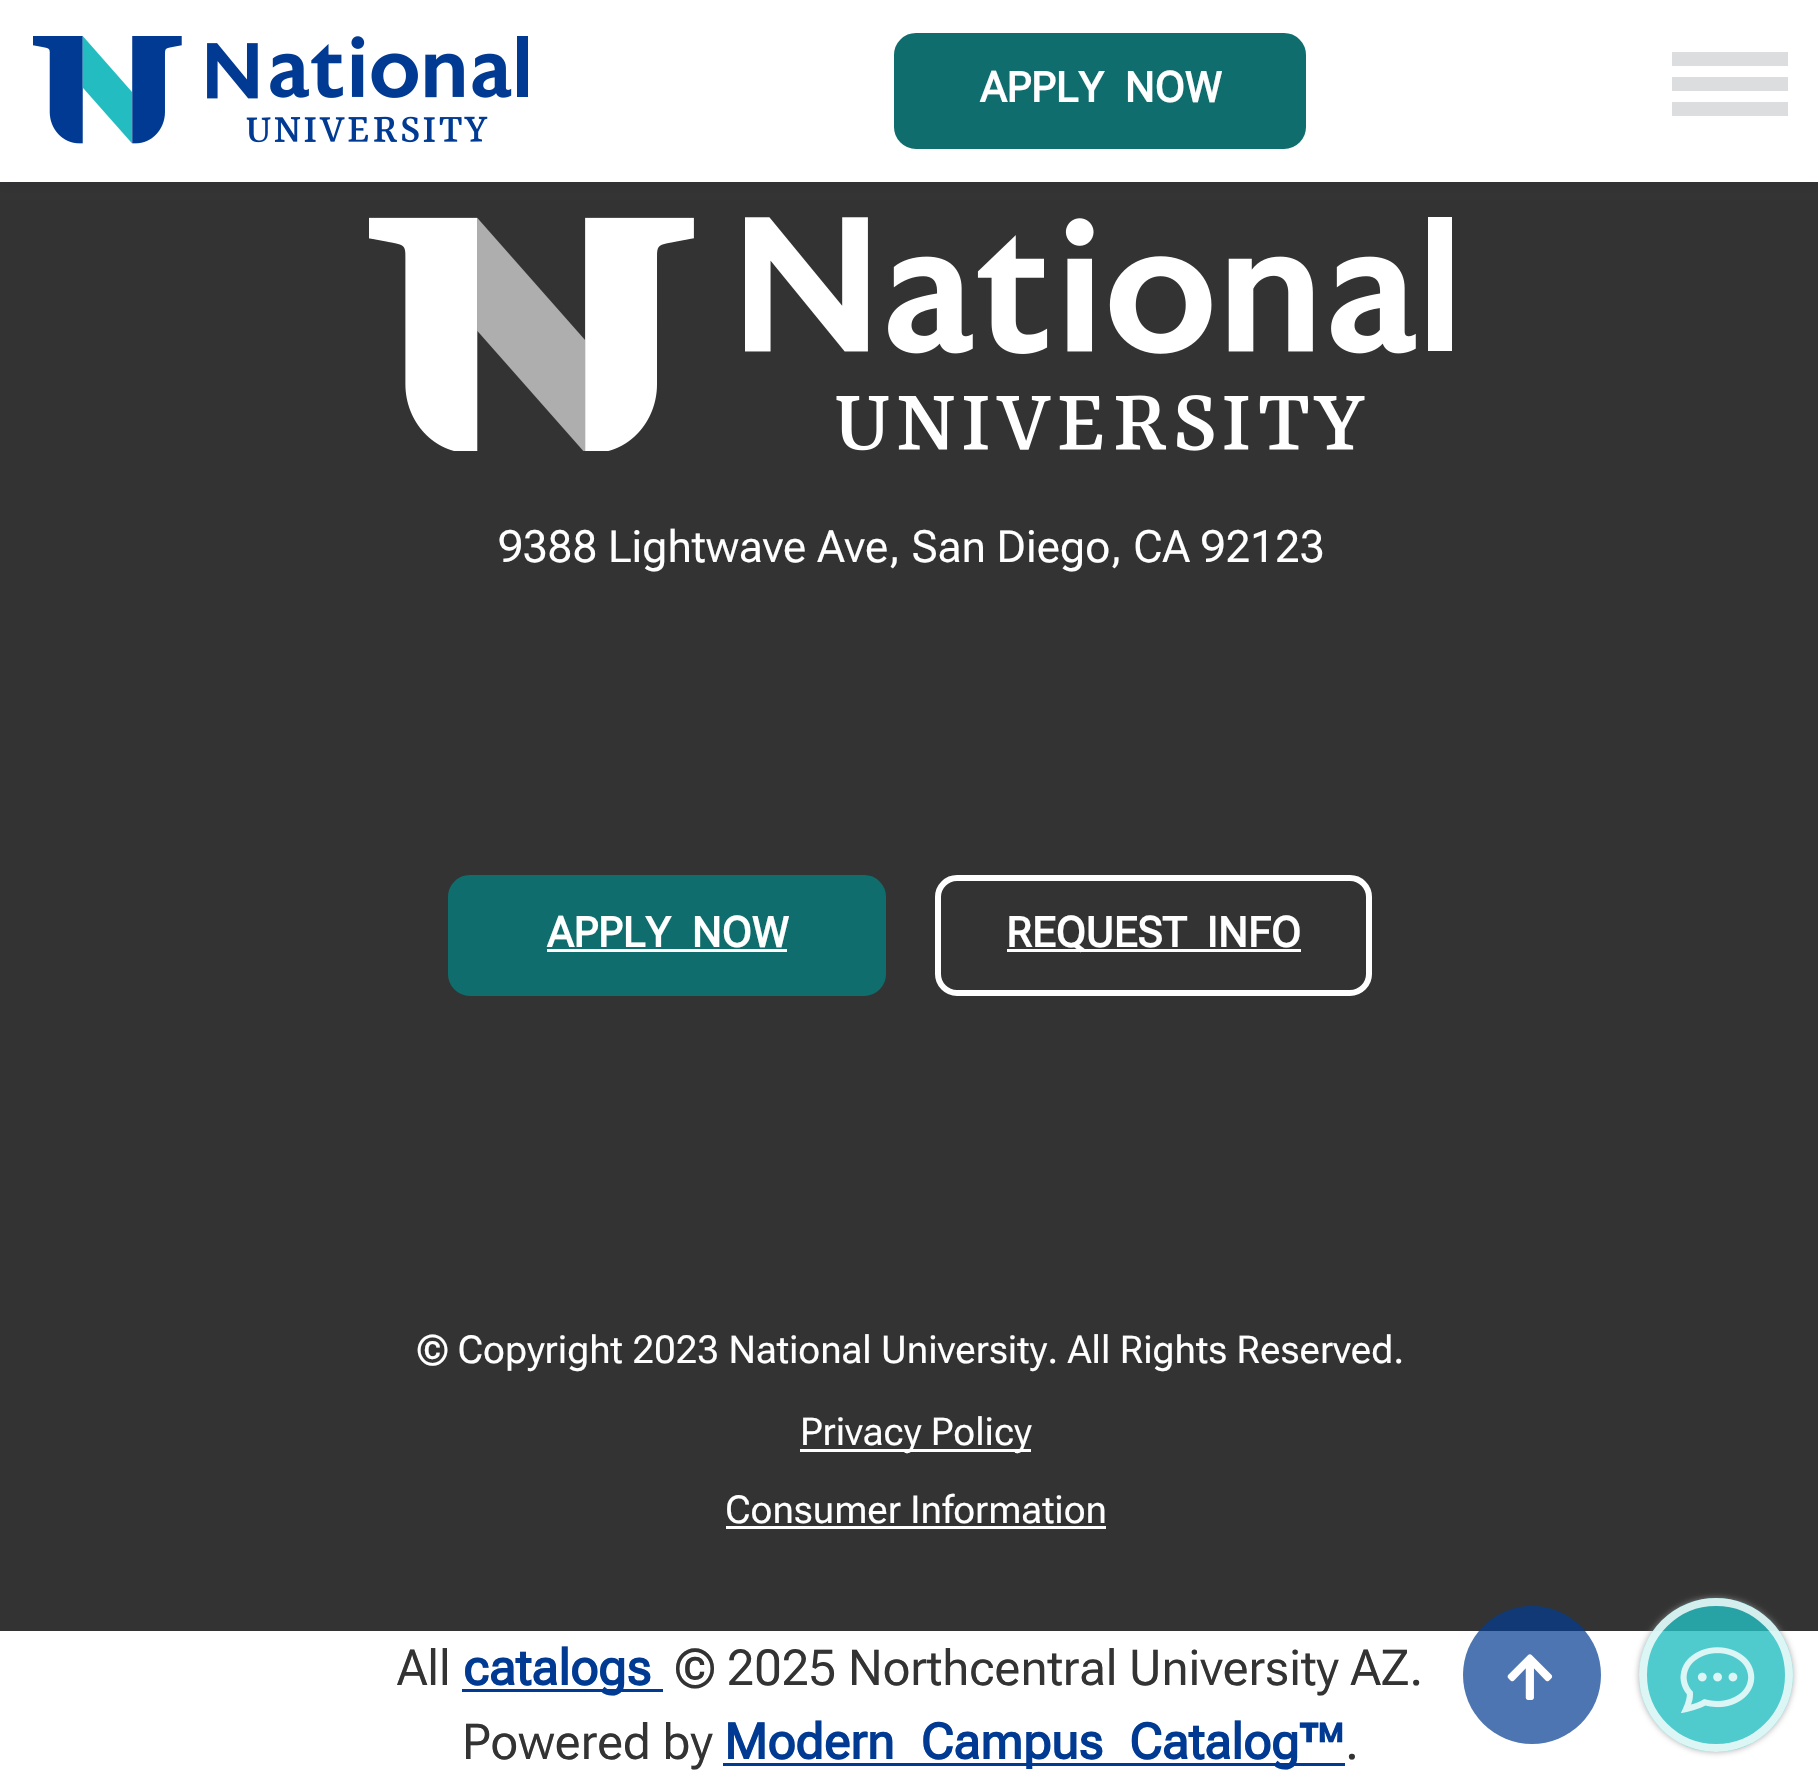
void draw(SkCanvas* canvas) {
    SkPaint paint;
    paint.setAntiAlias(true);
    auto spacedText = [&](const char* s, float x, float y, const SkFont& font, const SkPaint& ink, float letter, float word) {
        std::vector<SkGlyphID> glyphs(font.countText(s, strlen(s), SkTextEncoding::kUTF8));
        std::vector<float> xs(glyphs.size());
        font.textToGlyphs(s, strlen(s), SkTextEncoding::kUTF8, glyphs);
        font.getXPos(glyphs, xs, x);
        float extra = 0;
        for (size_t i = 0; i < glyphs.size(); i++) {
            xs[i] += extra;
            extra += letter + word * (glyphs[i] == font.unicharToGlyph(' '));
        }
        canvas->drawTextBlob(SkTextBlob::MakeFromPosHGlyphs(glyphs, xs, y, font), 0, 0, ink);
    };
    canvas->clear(0xFFFFFFFF);
    paint.setColor(0xFF333333);
    canvas->drawRect(SkRect::MakeXYWH(0, 182, 1818, 1449), paint);
    paint.setColor(0x26072046);
    paint.setMaskFilter(SkMaskFilter::MakeBlur(kNormal_SkBlurStyle, 5.5f));
    canvas->drawRect(SkRect::MakeXYWH(0, 3, 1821, 181), paint);
    paint.setMaskFilter(nullptr);
    paint.setColor(0xFFFFFFFF);
    canvas->drawRect(SkRect::MakeXYWH(0, 0, 1818, 182), paint);
    canvas->drawImageRect(SkImages::DeferredFromEncodedData(SkData::MakeFromFileName("img1.png")), SkRect::MakeXYWH(33, 36, 495, 108), SkSamplingOptions());
    paint.setColor(0xFF0F6E6D);
    canvas->drawRoundRect(SkRect::MakeXYWH(897, 36, 406, 110), 19, 19, paint);
    paint.setStyle(SkPaint::kStroke_Style);
    paint.setStrokeWidth(6);
    canvas->drawRoundRect(SkRect::MakeXYWH(897, 36, 406, 110), 19, 19, paint);
    SkFont font1(fontMgr->matchFamilyStyle("Roboto Flex", SkFontStyle::Bold()), 42);
    font1.setSubpixel(true);
    paint.setStyle(SkPaint::kFill_Style);
    paint.setColor(0xFFFFFFFF);
    spacedText("APPLY NOW", 980, 102, font1, paint, 0, 11);
    paint.setColor(0xFFDCDDDE);
    canvas->drawRect(SkRect::MakeXYWH(1672, 52, 116, 14), paint);
    canvas->drawRect(SkRect::MakeXYWH(1672, 77, 116, 14), paint);
    canvas->drawRect(SkRect::MakeXYWH(1672, 102, 116, 14), paint);
    canvas->drawImageRect(SkImages::DeferredFromEncodedData(SkData::MakeFromFileName("img2.png")), SkRect::MakeXYWH(369, 217, 1083, 234), SkSamplingOptions());
    SkFont font2(fontMgr->matchFamilyStyle("Roboto Flex", SkFontStyle::Normal()), 44.4f);
    font2.setSubpixel(true);
    paint.setColor(0xFFFFFFFF);
    canvas->drawString("9388 Lightwave Ave, San Diego, CA 92123", 498, 562, font2, paint);
    paint.setColor(0xFF0F6E6D);
    canvas->drawRoundRect(SkRect::MakeXYWH(451, 878, 432, 115), 19, 19, paint);
    paint.setStyle(SkPaint::kStroke_Style);
    canvas->drawRoundRect(SkRect::MakeXYWH(451, 878, 432, 115), 19, 19, paint);
    paint.setStyle(SkPaint::kFill_Style);
    paint.setColor(0xFFFFFFFF);
    spacedText("APPLY NOW", 547, 947, font1, paint, 0, 11);
    canvas->drawRect(SkRect::MakeXYWH(547, 949, 240, 3), paint);
    paint.setStyle(SkPaint::kStroke_Style);
    canvas->drawRoundRect(SkRect::MakeXYWH(938, 878, 431, 115), 19, 19, paint);
    paint.setStyle(SkPaint::kFill_Style);
    canvas->drawRect(SkRect::MakeXYWH(1007, 949, 294, 3), paint);
    spacedText("REQUEST INFO", 1006, 947, font1, paint, 0, 10);
    SkFont font3(fontMgr->matchFamilyStyle("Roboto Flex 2", SkFontStyle::Normal()), 38.5f);
    font3.setSubpixel(true);
    canvas->drawString("© Copyright 2023 National University. All Rights Reserved.", 417, 1363, font3, paint);
    canvas->drawRect(SkRect::MakeXYWH(800, 1449, 231, 3), paint);
    canvas->drawString("Privacy Policy", 800, 1445, font3, paint);
    canvas->drawString("Consumer Information", 725, 1523, font3, paint);
    canvas->drawRect(SkRect::MakeXYWH(726, 1526, 380, 3), paint);
    SkFont font4(fontMgr->matchFamilyStyle("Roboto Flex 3", SkFontStyle::Normal()), 49.5f);
    font4.setSubpixel(true);
    paint.setColor(0xFF333333);
    canvas->drawString("All", 397, 1685, font4, paint);
    paint.setColor(0xFF003A92);
    canvas->drawRect(SkRect::MakeXYWH(462, 1689, 201, 3), paint);
    SkFont font5(fontMgr->matchFamilyStyle("Roboto Flex", SkFontStyle::Bold()), 49.5f);
    font5.setSubpixel(true);
    canvas->drawString("catalogs", 463, 1685, font5, paint);
    paint.setColor(0xFF333333);
    canvas->drawString("© 2025 Northcentral University AZ.", 675, 1685, font4, paint);
    canvas->drawString("Powered by", 462, 1759, font4, paint);
    paint.setColor(0xFF003A92);
    canvas->drawRect(SkRect::MakeXYWH(723, 1763, 622, 3), paint);
    spacedText("Modern Campus Catalog™", 724, 1759, font5, paint, 0, 14);
    paint.setColor(0xFF333333);
    canvas->drawString(".", 1345, 1759, font4, paint);
    paint.setColor(0xB3003A92);
    canvas->drawCircle(1532, 1675, 69, paint);
    canvas->drawImageRect(SkImages::DeferredFromEncodedData(SkData::MakeFromFileName("img3.png")), SkRect::MakeXYWH(1507, 1654, 46, 46), SkSamplingOptions());
    canvas->save();
    canvas->clipPath(SkPathBuilder(SkPathFillType::kEvenOdd).moveTo(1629, 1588).lineTo(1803, 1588).lineTo(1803, 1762).lineTo(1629, 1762).close().moveTo(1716, 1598).cubicTo(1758.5f, 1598, 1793, 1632.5f, 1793, 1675).cubicTo(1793, 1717.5f, 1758.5f, 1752, 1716, 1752).cubicTo(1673.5f, 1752, 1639, 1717.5f, 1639, 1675).cubicTo(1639, 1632.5f, 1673.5f, 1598, 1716, 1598).close().detach(), true);
    paint.setColor(0xCC999999);
    paint.setMaskFilter(SkMaskFilter::MakeBlur(kNormal_SkBlurStyle, 3));
    canvas->drawRoundRect(SkRect::MakeXYWH(1639, 1598, 154, 154), 77, 77, paint);
    paint.setMaskFilter(nullptr);
    canvas->restore();
    paint.setColor(0xCC23BDC1);
    canvas->drawCircle(1716, 1675, 77, paint);
    paint.setStyle(SkPaint::kStroke_Style);
    paint.setStrokeWidth(8);
    paint.setColor(0xCCFFFFFF);
    canvas->drawCircle(1716, 1675, 73, paint);
    canvas->drawImageRect(SkImages::DeferredFromEncodedData(SkData::MakeFromFileName("img4.png")), SkRect::MakeXYWH(1680, 1647, 75, 66), SkSamplingOptions());
}
